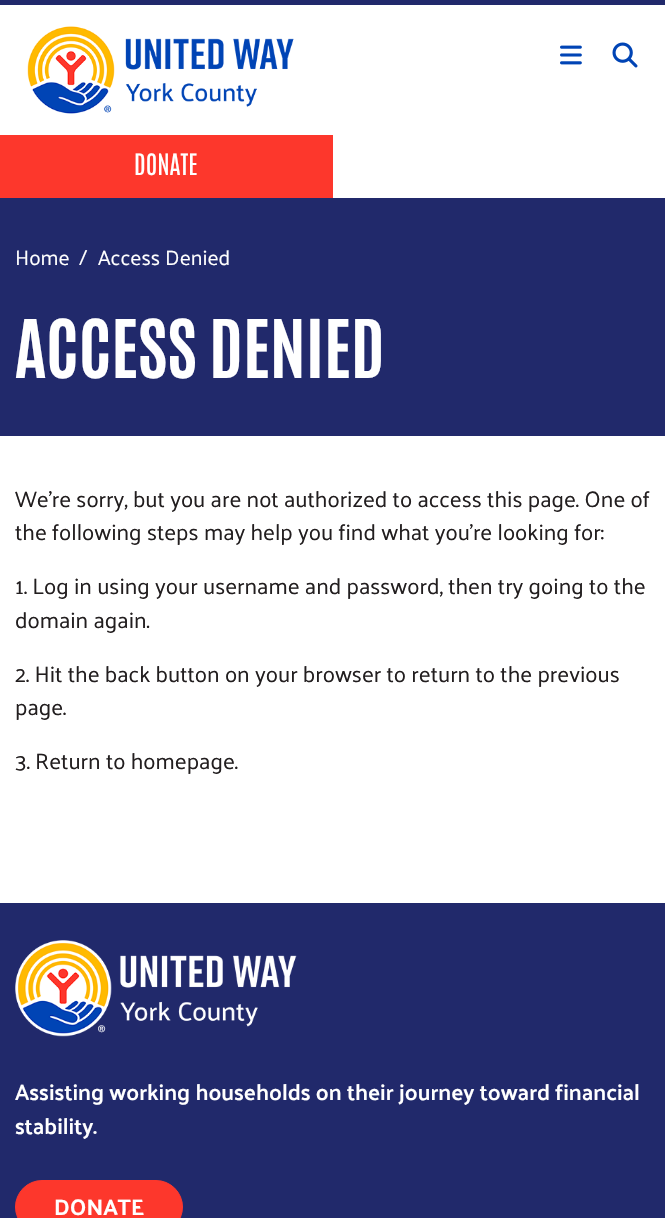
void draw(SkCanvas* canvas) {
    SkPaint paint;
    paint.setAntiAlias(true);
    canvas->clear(0xFFFFFFFF);
    paint.setColor(0xFF21296B);
    canvas->drawRect(SkRect::MakeXYWH(0, 0, 665, 5), paint);
    canvas->drawImageRect(SkImages::DeferredFromEncodedData(SkData::MakeFromFileName("img1.png")), SkRect::MakeXYWH(27, 26, 267, 88), SkSamplingOptions());
    canvas->drawImageRect(SkImages::DeferredFromEncodedData(SkData::MakeFromFileName("img2.png")), SkRect::MakeXYWH(560, 45, 22, 20), SkSamplingOptions());
    canvas->drawImageRect(SkImages::DeferredFromEncodedData(SkData::MakeFromFileName("img3.png")), SkRect::MakeXYWH(612, 42, 26, 26), SkSamplingOptions());
    paint.setColor(0xFFFD372C);
    canvas->drawRect(SkRect::MakeXYWH(0, 135, 333, 63), paint);
    SkFont font1(fontMgr->matchFamilyStyle("Antonio", SkFontStyle::Normal()), 25);
    font1.setSubpixel(true);
    paint.setColor(0xFFFFFFFF);
    canvas->drawString("DONATE", 134, 175, font1, paint);
    paint.setColor(0xFF21296B);
    canvas->drawRect(SkRect::MakeXYWH(0, 198, 665, 238), paint);
    SkFont font2(fontMgr->matchFamilyStyle("Palanquin", SkFontStyle::Normal()), 21);
    font2.setSubpixel(true);
    paint.setColor(0xFFFFFFFF);
    canvas->drawString("Home", 15, 265, font2, paint);
    canvas->drawString("/", 79, 265, font2, paint);
    canvas->drawString("Access Denied", 98, 265, font2, paint);
    SkFont font3(fontMgr->matchFamilyStyle("Antonio", SkFontStyle::Bold()), 68.75f);
    font3.setSubpixel(true);
    canvas->drawString("ACCESS DENIED", 15, 378, font3, paint);
    SkFont font4(fontMgr->matchFamilyStyle("Palanquin", SkFontStyle::Normal()), 22.5f);
    font4.setSubpixel(true);
    paint.setColor(0xFF221E1F);
    canvas->drawString("We're sorry, but you are not authorized to access this page. One of", 15, 507, font4, paint);
    canvas->drawString("the following steps may help you find what you're looking for:", 15, 540, font4, paint);
    canvas->drawString("1. Log in using your username and password, then try going to the", 15, 594, font4, paint);
    canvas->drawString("domain again.", 15, 628, font4, paint);
    canvas->drawString("2. Hit the back button on your browser to return to the previous", 15, 682, font4, paint);
    canvas->drawString("page.", 15, 715, font4, paint);
    canvas->drawString("3. Return to homepage.", 15, 769, font4, paint);
    paint.setColor(0xFF21296B);
    canvas->drawRect(SkRect::MakeXYWH(0, 903, 665, 315), paint);
    canvas->drawImageRect(SkImages::DeferredFromEncodedData(SkData::MakeFromFileName("img4.png")), SkRect::MakeXYWH(15, 940, 282, 97), SkSamplingOptions());
    SkFont font5(fontMgr->matchFamilyStyle("Palanquin", SkFontStyle(600, SkFontStyle::kNormal_Width, SkFontStyle::kUpright_Slant)), 22.5f);
    font5.setSubpixel(true);
    paint.setColor(0xFFFFFFFF);
    canvas->drawString("Assisting working households on their journey toward financial", 15, 1100, font5, paint);
    canvas->drawString("stability.", 15, 1134, font5, paint);
    paint.setColor(0xFFFD372C);
    canvas->drawRoundRect(SkRect::MakeXYWH(15.5f, 1180.5f, 167, 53), 26.5f, 26.5f, paint);
    paint.setStyle(SkPaint::kStroke_Style);
    paint.setStrokeWidth(1);
    canvas->drawRoundRect(SkRect::MakeXYWH(15.5f, 1180.5f, 167, 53), 26.5f, 26.5f, paint);
    SkFont font6(fontMgr->matchFamilyStyle("Palanquin", SkFontStyle::Bold()), 22.5f);
    font6.setSubpixel(true);
    paint.setStyle(SkPaint::kFill_Style);
    paint.setColor(0xFFFFFFFF);
    canvas->drawString("DONATE", 54, 1215, font6, paint);
}
